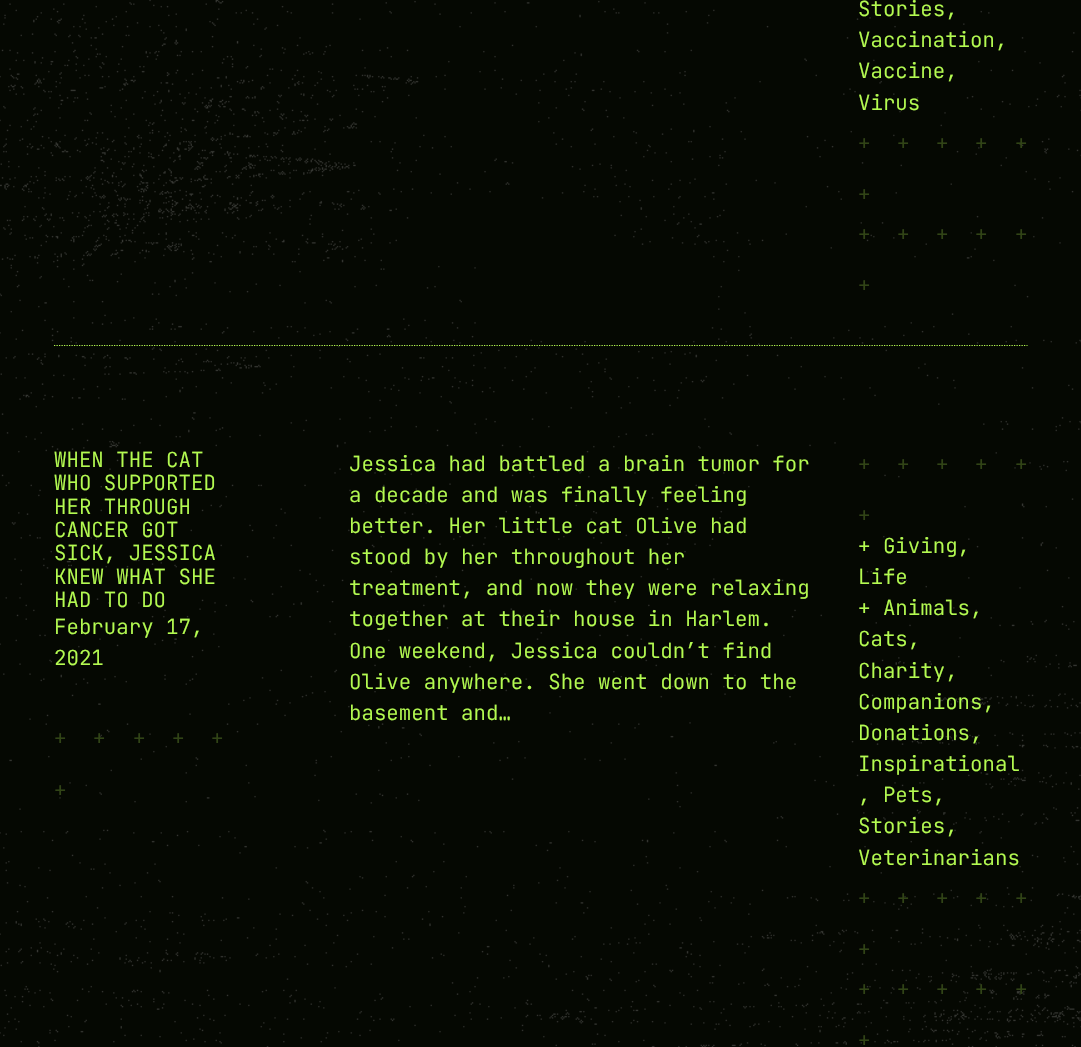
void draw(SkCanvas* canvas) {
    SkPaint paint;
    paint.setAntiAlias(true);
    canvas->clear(0xFFFFFFFF);
    canvas->drawImageRect(SkImages::DeferredFromEncodedData(SkData::MakeFromFileName("img1.png")), SkRect::MakeXYWH(0, 0, 1081, 1047), SkSamplingOptions());
    paint.setStyle(SkPaint::kStroke_Style);
    paint.setStrokeWidth(1.2f);
    paint.setColor(0xFFB4FB51);
    paint.setPathEffect(SkDashPathEffect::Make({{1.25f, 1.25f}}, 0));
    canvas->drawPath(SkPathBuilder().moveTo(54, 345.5f).lineTo(1027.5f, 345.5f).detach(), paint);
    paint.setPathEffect(nullptr);
    SkFont font1(fontMgr->matchFamilyStyle("JetBrains Mono", SkFontStyle(300, SkFontStyle::kNormal_Width, SkFontStyle::kUpright_Slant)), 20.75f);
    font1.setSubpixel(true);
    paint.setStyle(SkPaint::kFill_Style);
    canvas->drawString("Stories,", 858, 16, font1, paint);
    canvas->drawString("Vaccination,", 858, 47, font1, paint);
    canvas->drawString("Vaccine,", 858, 78, font1, paint);
    canvas->drawString("Virus", 858, 110, font1, paint);
    paint.setColor(0xFF314416);
    canvas->drawString("+", 858, 150, font1, paint);
    canvas->drawString("+", 897, 150, font1, paint);
    canvas->drawString("+", 936, 150, font1, paint);
    canvas->drawString("+", 975, 150, font1, paint);
    canvas->drawString("+", 1015, 150, font1, paint);
    canvas->drawString("+", 858, 201, font1, paint);
    canvas->drawString("+", 858, 241, font1, paint);
    canvas->drawString("+", 897, 241, font1, paint);
    canvas->drawString("+", 936, 241, font1, paint);
    canvas->drawString("+", 975, 241, font1, paint);
    canvas->drawString("+", 1015, 241, font1, paint);
    canvas->drawString("+", 858, 292, font1, paint);
    paint.setColor(0xFFB4FB51);
    canvas->drawString("WHEN THE CAT", 54, 467, font1, paint);
    canvas->drawString("WHO SUPPORTED", 54, 490, font1, paint);
    canvas->drawString("HER THROUGH", 54, 514, font1, paint);
    canvas->drawString("CANCER GOT", 54, 537, font1, paint);
    canvas->drawString("SICK, JESSICA", 54, 560, font1, paint);
    canvas->drawString("KNEW WHAT SHE", 54, 584, font1, paint);
    canvas->drawString("HAD TO DO", 54, 607, font1, paint);
    canvas->drawString("February 17,", 54, 634, font1, paint);
    canvas->drawString("2021", 54, 665, font1, paint);
    paint.setColor(0xFF314416);
    canvas->drawString("+", 54, 745, font1, paint);
    canvas->drawString("+", 93, 745, font1, paint);
    canvas->drawString("+", 133, 745, font1, paint);
    canvas->drawString("+", 172, 745, font1, paint);
    canvas->drawString("+", 211, 745, font1, paint);
    canvas->drawString("+", 54, 797, font1, paint);
    paint.setColor(0xFFB4FB51);
    canvas->drawString("Jessica had battled a brain tumor for", 349, 471, font1, paint);
    canvas->drawString("a decade and was finally feeling", 349, 502, font1, paint);
    canvas->drawString("better. Her little cat Olive had", 349, 533, font1, paint);
    canvas->drawString("stood by her throughout her", 349, 564, font1, paint);
    canvas->drawString("treatment, and now they were relaxing", 349, 595, font1, paint);
    canvas->drawString("together at their house in Harlem.", 349, 626, font1, paint);
    canvas->drawString("One weekend, Jessica couldn’t find", 349, 658, font1, paint);
    canvas->drawString("Olive anywhere. She went down to the", 349, 689, font1, paint);
    canvas->drawString("basement and…", 349, 720, font1, paint);
    paint.setColor(0xFF314416);
    canvas->drawString("+", 858, 471, font1, paint);
    canvas->drawString("+", 897, 471, font1, paint);
    canvas->drawString("+", 936, 471, font1, paint);
    canvas->drawString("+", 975, 471, font1, paint);
    canvas->drawString("+", 1015, 471, font1, paint);
    canvas->drawString("+", 858, 522, font1, paint);
    paint.setColor(0xFFB4FB51);
    canvas->drawString("+ Giving,", 858, 553, font1, paint);
    canvas->drawString("Life", 858, 584, font1, paint);
    canvas->drawString("+ Animals,", 858, 615, font1, paint);
    canvas->drawString("Cats,", 858, 646, font1, paint);
    canvas->drawString("Charity,", 858, 678, font1, paint);
    canvas->drawString("Companions,", 858, 709, font1, paint);
    canvas->drawString("Donations,", 858, 740, font1, paint);
    canvas->drawString("Inspirational", 858, 771, font1, paint);
    canvas->drawString(", Pets,", 858, 802, font1, paint);
    canvas->drawString("Stories,", 858, 833, font1, paint);
    canvas->drawString("Veterinarians", 858, 865, font1, paint);
    paint.setColor(0xFF314416);
    canvas->drawString("+", 858, 905, font1, paint);
    canvas->drawString("+", 897, 905, font1, paint);
    canvas->drawString("+", 936, 905, font1, paint);
    canvas->drawString("+", 975, 905, font1, paint);
    canvas->drawString("+", 1015, 905, font1, paint);
    canvas->drawString("+", 858, 956, font1, paint);
    canvas->drawString("+", 858, 996, font1, paint);
    canvas->drawString("+", 897, 996, font1, paint);
    canvas->drawString("+", 936, 996, font1, paint);
    canvas->drawString("+", 975, 996, font1, paint);
    canvas->drawString("+", 1015, 996, font1, paint);
    canvas->drawString("+", 858, 1047, font1, paint);
}
